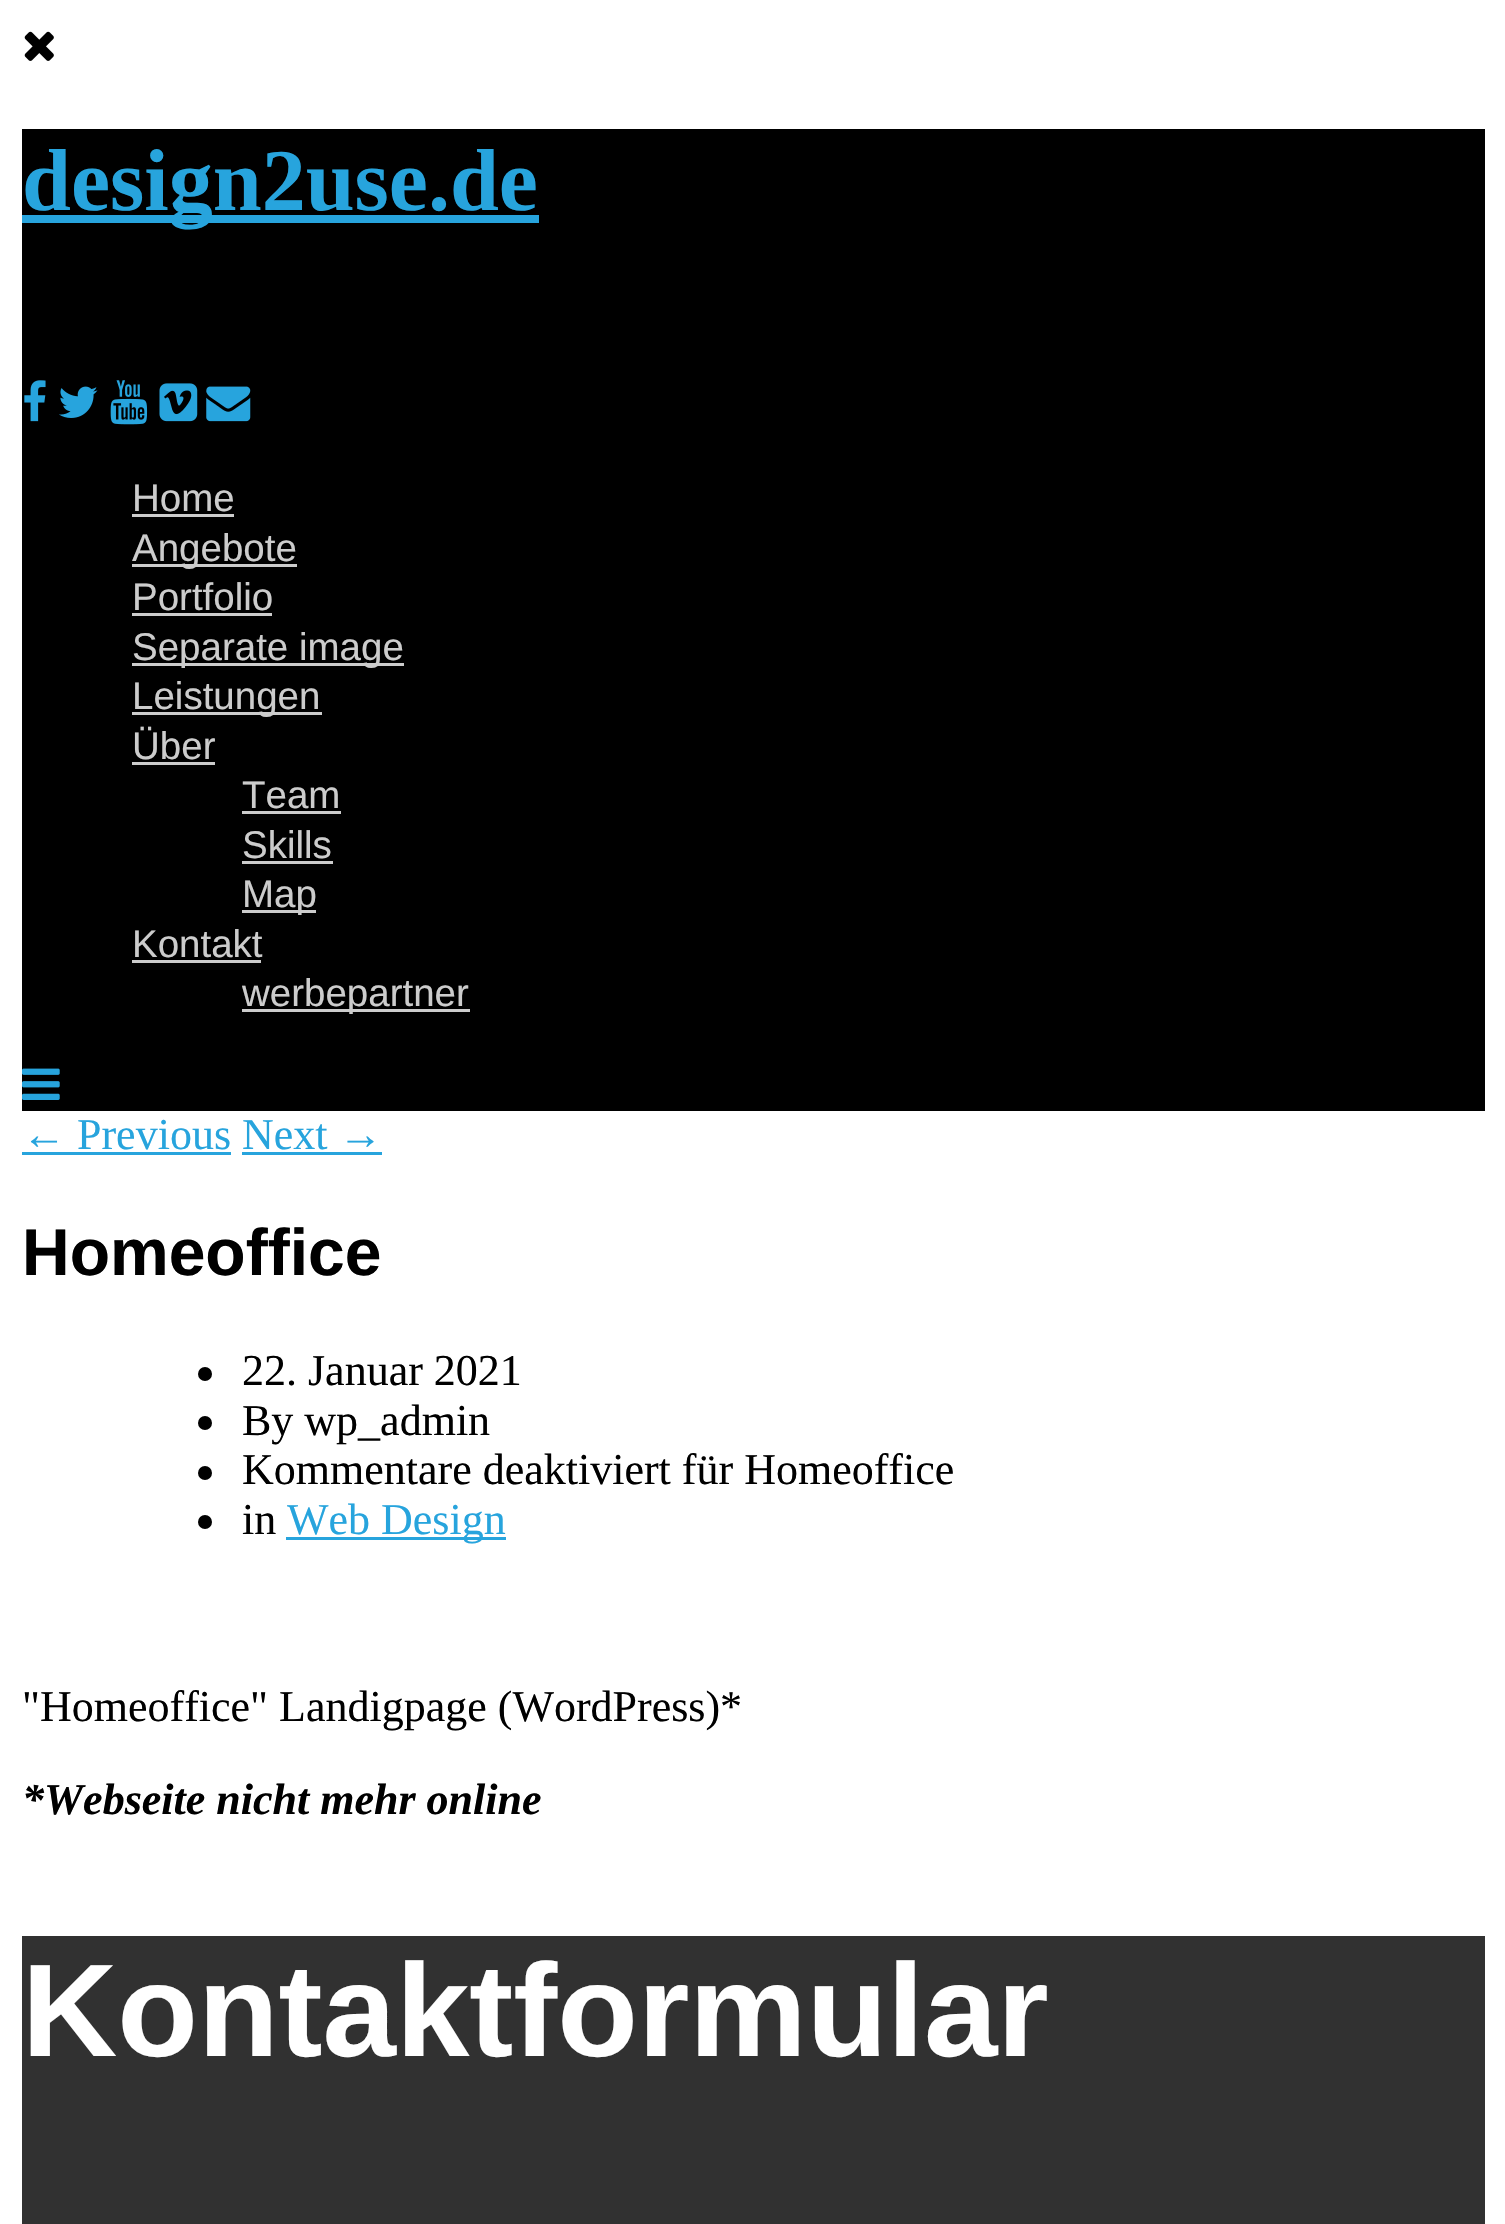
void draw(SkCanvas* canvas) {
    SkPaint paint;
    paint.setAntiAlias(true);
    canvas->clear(0xFFFFFFFF);
    canvas->drawImageRect(SkImages::DeferredFromEncodedData(SkData::MakeFromFileName("img1.png")), SkRect::MakeXYWH(24, 31, 30, 30), SkSamplingOptions());
    paint.setColor(0xFF000000);
    canvas->drawRect(SkRect::MakeXYWH(22, 129, 1463, 982), paint);
    paint.setColor(0xFF27A4DD);
    canvas->drawRect(SkRect::MakeXYWH(22, 215, 517, 8), paint);
    SkFont font1(fontMgr->matchFamilyStyle("Liberation Serif", SkFontStyle::Bold()), 88);
    font1.setSubpixel(true);
    canvas->drawString("design2use.de", 22, 210, font1, paint);
    canvas->drawImageRect(SkImages::DeferredFromEncodedData(SkData::MakeFromFileName("img2.png")), SkRect::MakeXYWH(24, 380, 22, 42), SkSamplingOptions());
    canvas->drawImageRect(SkImages::DeferredFromEncodedData(SkData::MakeFromFileName("img3.png")), SkRect::MakeXYWH(59, 386, 39, 32), SkSamplingOptions());
    canvas->drawImageRect(SkImages::DeferredFromEncodedData(SkData::MakeFromFileName("img4.png")), SkRect::MakeXYWH(110, 380, 38, 45), SkSamplingOptions());
    canvas->drawImageRect(SkImages::DeferredFromEncodedData(SkData::MakeFromFileName("img5.png")), SkRect::MakeXYWH(159, 383, 39, 39), SkSamplingOptions());
    canvas->drawImageRect(SkImages::DeferredFromEncodedData(SkData::MakeFromFileName("img6.png")), SkRect::MakeXYWH(206, 386, 45, 36), SkSamplingOptions());
    SkFont font2(fontMgr->matchFamilyStyle("Liberation Sans", SkFontStyle::Normal()), 38.5f);
    font2.setSubpixel(true);
    paint.setColor(0xFFCCCCCC);
    canvas->drawString("Home", 132, 511, font2, paint);
    canvas->drawRect(SkRect::MakeXYWH(132, 514, 102, 3), paint);
    canvas->drawRect(SkRect::MakeXYWH(132, 564, 165, 3), paint);
    canvas->drawString("Angebote", 132, 561, font2, paint);
    canvas->drawString("Portfolio", 132, 610, font2, paint);
    canvas->drawRect(SkRect::MakeXYWH(132, 613, 140, 3), paint);
    canvas->drawRect(SkRect::MakeXYWH(132, 663, 272, 3), paint);
    canvas->drawString("Separate image", 132, 660, font2, paint);
    canvas->drawRect(SkRect::MakeXYWH(132, 712, 190, 3), paint);
    canvas->drawString("Leistungen", 132, 709, font2, paint);
    canvas->drawString("Über", 132, 759, font2, paint);
    canvas->drawRect(SkRect::MakeXYWH(132, 762, 83, 3), paint);
    canvas->drawString("Team", 242, 808, font2, paint);
    canvas->drawRect(SkRect::MakeXYWH(242, 811, 99, 3), paint);
    canvas->drawString("Skills", 242, 858, font2, paint);
    canvas->drawRect(SkRect::MakeXYWH(242, 861, 91, 3), paint);
    canvas->drawRect(SkRect::MakeXYWH(242, 910, 74, 3), paint);
    canvas->drawString("Map", 242, 907, font2, paint);
    canvas->drawString("Kontakt", 132, 957, font2, paint);
    canvas->drawRect(SkRect::MakeXYWH(132, 960, 129, 3), paint);
    canvas->drawRect(SkRect::MakeXYWH(242, 1009, 228, 3), paint);
    canvas->drawString("werbepartner", 242, 1006, font2, paint);
    canvas->drawImageRect(SkImages::DeferredFromEncodedData(SkData::MakeFromFileName("img7.png")), SkRect::MakeXYWH(22, 1068, 38, 32), SkSamplingOptions());
    SkFont font3(fontMgr->matchFamilyStyle("Liberation Serif", SkFontStyle::Normal()), 44);
    font3.setSubpixel(true);
    paint.setColor(0xFF27A4DD);
    canvas->drawString("← Previous Next →", 22, 1149, font3, paint);
    canvas->drawRect(SkRect::MakeXYWH(22, 1152, 209, 3), paint);
    canvas->drawRect(SkRect::MakeXYWH(242, 1152, 140, 3), paint);
    SkFont font4(fontMgr->matchFamilyStyle("Liberation Sans", SkFontStyle::Bold()), 66);
    font4.setSubpixel(true);
    paint.setColor(0xFF000000);
    canvas->drawString("Homeoffice", 22, 1275, font4, paint);
    canvas->drawCircle(205, 1374, 7, paint);
    canvas->drawString("22. Januar 2021", 242, 1385, font3, paint);
    canvas->drawCircle(205, 1423, 7, paint);
    canvas->drawString("By wp_admin", 242, 1435, font3, paint);
    canvas->drawCircle(205, 1473, 7, paint);
    canvas->drawString("Kommentare deaktiviert für Homeoffice", 242, 1484, font3, paint);
    canvas->drawCircle(205, 1522, 7, paint);
    canvas->drawString("in", 242, 1534, font3, paint);
    paint.setColor(0xFF27A4DD);
    canvas->drawRect(SkRect::MakeXYWH(286, 1537, 220, 3), paint);
    canvas->drawString("Web Design", 287, 1534, font3, paint);
    paint.setColor(0xFF000000);
    canvas->drawString("\"Homeoffice\" Landigpage (WordPress)*", 22, 1721, font3, paint);
    SkFont font5(fontMgr->matchFamilyStyle("Liberation Serif", SkFontStyle::BoldItalic()), 44);
    font5.setSubpixel(true);
    canvas->drawString("*Webseite nicht mehr online", 22, 1814, font5, paint);
    paint.setColor(0xFF313131);
    canvas->drawRect(SkRect::MakeXYWH(22, 1936, 1463, 288), paint);
    SkFont font6(fontMgr->matchFamilyStyle("Liberation Sans", SkFontStyle::Bold()), 132);
    font6.setSubpixel(true);
    paint.setColor(0xFFFFFFFF);
    canvas->drawString("Kontaktformular", 22, 2056, font6, paint);
}
